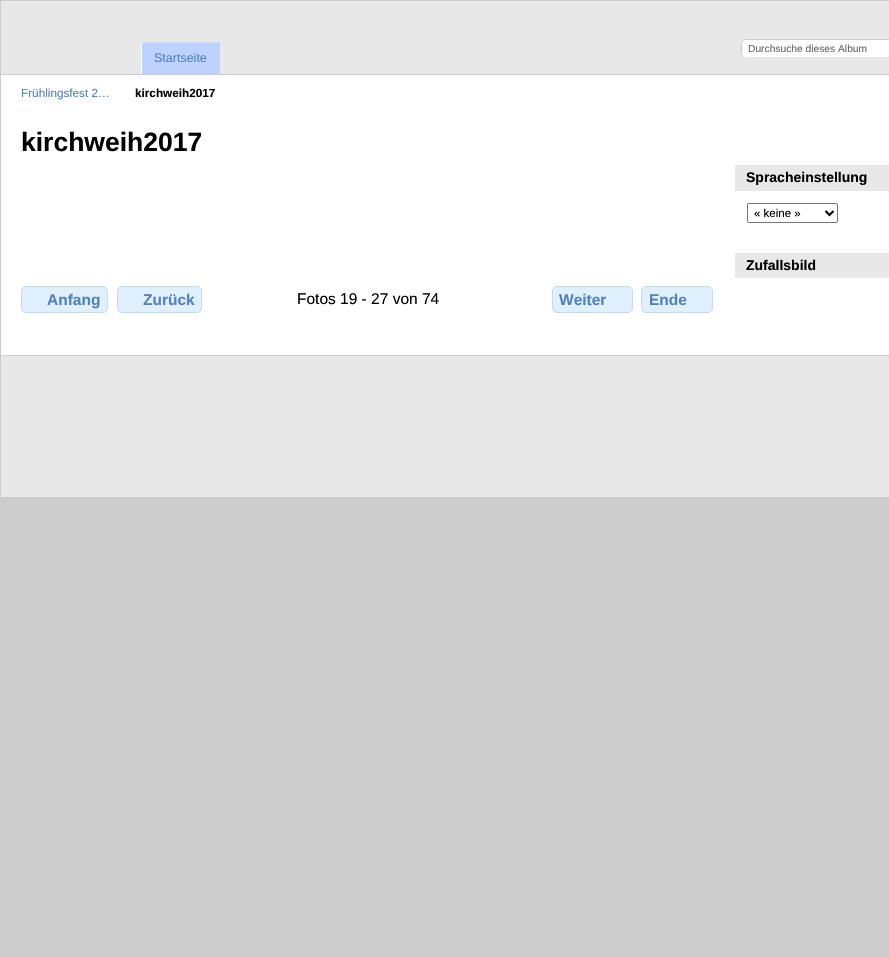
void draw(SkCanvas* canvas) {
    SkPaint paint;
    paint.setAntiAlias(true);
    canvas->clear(0xFFCCCCCC);
    paint.setColor(0xFFFFFFFF);
    canvas->drawRect(SkRect::MakeXYWH(1, 75, 888, 280), paint);
    paint.setColor(0xFFE8E8E8);
    canvas->drawRect(SkRect::MakeXYWH(1, 1, 888, 73), paint);
    paint.setColor(0xFFFFFFFF);
    canvas->drawPath(SkPathBuilder().moveTo(746, 39).lineTo(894, 39).lineTo(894, 58).lineTo(746, 58).cubicTo(743, 58, 741, 56, 741, 53).lineTo(741, 44).cubicTo(741, 41, 743, 39, 746, 39).close().detach(), paint);
    paint.setColor(0xFFCCCCCC);
    canvas->drawPath(SkPathBuilder().moveTo(746, 39).cubicTo(744, 39, 743, 40, 742, 40).lineTo(743, 41).cubicTo(744, 40, 745, 40, 746, 40).lineTo(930, 40).lineTo(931, 39).close().detach(), paint);
    paint.setColor(0xFFE8E8E8);
    canvas->drawPath(SkPathBuilder().moveTo(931, 58).lineTo(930, 57).lineTo(745, 57).lineTo(743, 56).lineTo(742, 57).cubicTo(743, 58, 744, 58, 746, 58).close().detach(), paint);
    paint.setColor(0xFFCCCCCC);
    canvas->drawPath(SkPathBuilder().moveTo(741, 44).cubicTo(741, 47, 740, 54.5f, 742.5f, 56.5f).lineTo(743, 56).lineTo(742, 54).lineTo(742, 43.5f).cubicTo(742, 42.5f, 742.5f, 41.5f, 743, 41).lineTo(742.5f, 40.5f).cubicTo(741.5f, 41, 741, 42.5f, 741, 44).close().detach(), paint);
    SkFont font1(fontMgr->matchFamilyStyle("Liberation Sans", SkFontStyle::Normal()), 10.25f);
    font1.setSubpixel(true);
    paint.setColor(0xFF666666);
    canvas->drawString("Durchsuche dieses Album", 748, 52, font1, paint);
    paint.setColor(0xFFBDD2FF);
    canvas->drawRect(SkRect::MakeXYWH(142, 43, 78, 31), paint);
    paint.setColor(0xFFCFDEFF);
    canvas->drawRect(SkRect::MakeXYWH(141, 42, 79, 1), paint);
    paint.setColor(0xFFFFFFFF);
    canvas->drawRect(SkRect::MakeXYWH(141, 42, 1, 32), paint);
    SkFont font2(fontMgr->matchFamilyStyle("Liberation Sans", SkFontStyle::Normal()), 12.5f);
    font2.setSubpixel(true);
    paint.setColor(0xFF5382BF);
    canvas->drawString("Startseite", 154, 62, font2, paint);
    SkFont font3(fontMgr->matchFamilyStyle("Liberation Sans", SkFontStyle::Normal()), 11.75f);
    font3.setSubpixel(true);
    canvas->drawString("Frühlingsfest 2…", 21, 97, font3, paint);
    SkFont font4(fontMgr->matchFamilyStyle("Liberation Sans", SkFontStyle::Bold()), 11.75f);
    font4.setSubpixel(true);
    paint.setColor(0xFF000000);
    canvas->drawString("kirchweih2017", 135, 97, font4, paint);
    SkFont font5(fontMgr->matchFamilyStyle("Liberation Sans", SkFontStyle::Bold()), 26.5f);
    font5.setSubpixel(true);
    canvas->drawString("kirchweih2017", 21, 151, font5, paint);
    paint.setColor(0xFFDFEFFC);
    canvas->drawRoundRect(SkRect::MakeXYWH(21.5f, 286.5f, 86, 26), 4.5f, 4.5f, paint);
    paint.setStyle(SkPaint::kStroke_Style);
    paint.setStrokeWidth(1);
    paint.setColor(0xFFC5DBEC);
    canvas->drawRoundRect(SkRect::MakeXYWH(21.5f, 286.5f, 86, 26), 4.5f, 4.5f, paint);
    SkFont font6(fontMgr->matchFamilyStyle("Liberation Sans", SkFontStyle::Bold()), 15.5f);
    font6.setSubpixel(true);
    paint.setStyle(SkPaint::kFill_Style);
    paint.setColor(0xFF5382BF);
    canvas->drawString("Anfang", 47, 305, font6, paint);
    paint.setColor(0xFFDFEFFC);
    canvas->drawRoundRect(SkRect::MakeXYWH(117.5f, 286.5f, 84, 26), 4.5f, 4.5f, paint);
    paint.setStyle(SkPaint::kStroke_Style);
    paint.setColor(0xFFC5DBEC);
    canvas->drawRoundRect(SkRect::MakeXYWH(117.5f, 286.5f, 84, 26), 4.5f, 4.5f, paint);
    paint.setStyle(SkPaint::kFill_Style);
    paint.setColor(0xFF5382BF);
    canvas->drawString("Zurück", 143, 305, font6, paint);
    SkFont font7(fontMgr->matchFamilyStyle("Liberation Sans", SkFontStyle::Normal()), 15.5f);
    font7.setSubpixel(true);
    paint.setColor(0xFF000000);
    canvas->drawString("Fotos 19 - 27 von 74", 297, 304, font7, paint);
    paint.setColor(0xFFDFEFFC);
    canvas->drawRoundRect(SkRect::MakeXYWH(552.5f, 286.5f, 80, 26), 4.5f, 4.5f, paint);
    paint.setStyle(SkPaint::kStroke_Style);
    paint.setColor(0xFFC5DBEC);
    canvas->drawRoundRect(SkRect::MakeXYWH(552.5f, 286.5f, 80, 26), 4.5f, 4.5f, paint);
    paint.setStyle(SkPaint::kFill_Style);
    paint.setColor(0xFF5382BF);
    canvas->drawString("Weiter", 559, 305, font6, paint);
    paint.setColor(0xFFDFEFFC);
    canvas->drawRoundRect(SkRect::MakeXYWH(641.5f, 286.5f, 71, 26), 4.5f, 4.5f, paint);
    paint.setStyle(SkPaint::kStroke_Style);
    paint.setColor(0xFFC5DBEC);
    canvas->drawRoundRect(SkRect::MakeXYWH(641.5f, 286.5f, 71, 26), 4.5f, 4.5f, paint);
    paint.setStyle(SkPaint::kFill_Style);
    paint.setColor(0xFF5382BF);
    canvas->drawString("Ende", 649, 305, font6, paint);
    paint.setColor(0xFFE8E8E8);
    canvas->drawRect(SkRect::MakeXYWH(735, 165, 154, 26), paint);
    SkFont font8(fontMgr->matchFamilyStyle("Liberation Sans", SkFontStyle::Bold()), 14);
    font8.setSubpixel(true);
    paint.setColor(0xFF000000);
    canvas->drawString("Spracheinstellung", 746, 182, font8, paint);
    paint.setStyle(SkPaint::kStroke_Style);
    paint.setColor(0xFF767676);
    canvas->drawRoundRect(SkRect::MakeXYWH(747.5f, 203.5f, 90, 19), 1.5f, 1.5f, paint);
    paint.setStrokeWidth(2);
    paint.setColor(0xFF000000);
    canvas->drawPath(SkPathBuilder().moveTo(825.5f, 211).lineTo(829.5f, 215).lineTo(833.5f, 211).detach(), paint);
    SkFont font9(fontMgr->matchFamilyStyle("Liberation Sans", SkFontStyle::Normal()), 11.5f);
    font9.setSubpixel(true);
    paint.setStyle(SkPaint::kFill_Style);
    canvas->drawString("« keine »", 754, 217, font9, paint);
    paint.setColor(0xFFE8E8E8);
    canvas->drawRect(SkRect::MakeXYWH(735, 253, 154, 25), paint);
    paint.setColor(0xFF000000);
    canvas->drawString("Zufallsbild", 746, 270, font8, paint);
    paint.setColor(0xFFE8E8E8);
    canvas->drawRect(SkRect::MakeXYWH(1, 356, 888, 141), paint);
}
